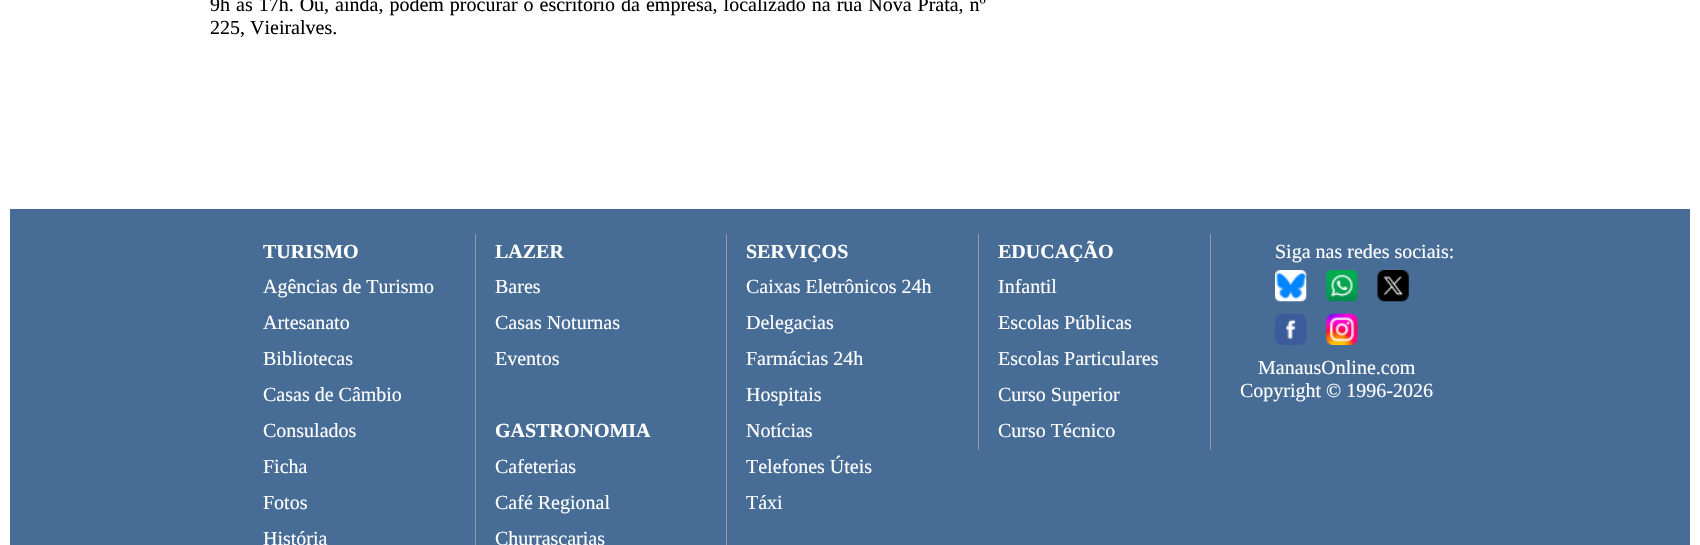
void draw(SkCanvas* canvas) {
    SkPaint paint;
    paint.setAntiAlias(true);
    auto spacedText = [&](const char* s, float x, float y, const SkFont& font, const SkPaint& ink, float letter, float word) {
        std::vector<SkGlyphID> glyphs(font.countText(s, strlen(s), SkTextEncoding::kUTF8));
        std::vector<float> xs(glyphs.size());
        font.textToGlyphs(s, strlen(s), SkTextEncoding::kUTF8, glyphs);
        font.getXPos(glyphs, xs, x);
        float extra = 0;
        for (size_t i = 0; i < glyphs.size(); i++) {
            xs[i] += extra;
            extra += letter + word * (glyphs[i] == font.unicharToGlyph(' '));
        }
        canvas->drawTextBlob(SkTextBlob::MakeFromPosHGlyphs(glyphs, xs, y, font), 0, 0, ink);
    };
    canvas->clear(0xFFFFFFFF);
    SkFont font1(fontMgr->matchFamilyStyle("Liberation Serif", SkFontStyle::Normal()), 20);
    font1.setSubpixel(true);
    paint.setColor(0xFF000000);
    spacedText("9h às 17h. Ou, ainda, podem procurar o escritório da empresa, localizado na rua Nova Prata, nº", 210, 11, font1, paint, 0, 1);
    canvas->drawString("225, Vieiralves.", 210, 34, font1, paint);
    paint.setColor(0xFF476C95);
    canvas->drawRect(SkRect::MakeXYWH(10, 209, 1680, 336), paint);
    SkFont font2(fontMgr->matchFamilyStyle("Liberation Serif", SkFontStyle::Bold()), 20);
    font2.setSubpixel(true);
    paint.setColor(0xFFFFFFFF);
    canvas->drawString("TURISMO", 263, 258, font2, paint);
    canvas->drawString("Agências de Turismo", 263, 293, font1, paint);
    canvas->drawString("Artesanato", 263, 329, font1, paint);
    canvas->drawString("Bibliotecas", 263, 365, font1, paint);
    canvas->drawString("Casas de Câmbio", 263, 401, font1, paint);
    canvas->drawString("Consulados", 263, 437, font1, paint);
    canvas->drawString("Ficha", 263, 473, font1, paint);
    canvas->drawString("Fotos", 263, 509, font1, paint);
    canvas->drawString("História", 263, 545, font1, paint);
    paint.setColor(0xFF999999);
    canvas->drawRect(SkRect::MakeXYWH(475, 234, 1, 311), paint);
    paint.setColor(0xFFFFFFFF);
    canvas->drawString("LAZER", 495, 258, font2, paint);
    canvas->drawString("Bares", 495, 293, font1, paint);
    canvas->drawString("Casas Noturnas", 495, 329, font1, paint);
    canvas->drawString("Eventos", 495, 365, font1, paint);
    canvas->drawString("GASTRONOMIA", 495, 437, font2, paint);
    canvas->drawString("Cafeterias", 495, 473, font1, paint);
    canvas->drawString("Café Regional", 495, 509, font1, paint);
    canvas->drawString("Churrascarias", 495, 545, font1, paint);
    paint.setColor(0xFF999999);
    canvas->drawRect(SkRect::MakeXYWH(726, 234, 1, 311), paint);
    paint.setColor(0xFFFFFFFF);
    canvas->drawString("SERVIÇOS", 746, 258, font2, paint);
    canvas->drawString("Caixas Eletrônicos 24h", 746, 293, font1, paint);
    canvas->drawString("Delegacias", 746, 329, font1, paint);
    canvas->drawString("Farmácias 24h", 746, 365, font1, paint);
    canvas->drawString("Hospitais", 746, 401, font1, paint);
    canvas->drawString("Notícias", 746, 437, font1, paint);
    canvas->drawString("Telefones Úteis", 746, 473, font1, paint);
    canvas->drawString("Táxi", 746, 509, font1, paint);
    paint.setColor(0xFF999999);
    canvas->drawRect(SkRect::MakeXYWH(1210, 234, 1, 216), paint);
    canvas->drawRect(SkRect::MakeXYWH(978, 234, 1, 216), paint);
    paint.setColor(0xFFFFFFFF);
    canvas->drawString("EDUCAÇÃO", 998, 258, font2, paint);
    canvas->drawString("Infantil", 998, 293, font1, paint);
    canvas->drawString("Escolas Públicas", 998, 329, font1, paint);
    canvas->drawString("Escolas Particulares", 998, 365, font1, paint);
    canvas->drawString("Curso Superior", 998, 401, font1, paint);
    canvas->drawString("Curso Técnico", 998, 437, font1, paint);
    canvas->drawString("Siga nas redes sociais:", 1275, 258, font1, paint);
    canvas->drawImageRect(SkImages::DeferredFromEncodedData(SkData::MakeFromFileName("img1.png")), SkRect::MakeXYWH(1275, 270, 32, 32), SkSamplingOptions());
    canvas->drawImageRect(SkImages::DeferredFromEncodedData(SkData::MakeFromFileName("img2.png")), SkRect::MakeXYWH(1326, 270, 32, 32), SkSamplingOptions());
    canvas->drawImageRect(SkImages::DeferredFromEncodedData(SkData::MakeFromFileName("img3.png")), SkRect::MakeXYWH(1377, 270, 32, 32), SkSamplingOptions());
    canvas->drawImageRect(SkImages::DeferredFromEncodedData(SkData::MakeFromFileName("img4.png")), SkRect::MakeXYWH(1275, 313, 32, 32), SkSamplingOptions());
    canvas->drawImageRect(SkImages::DeferredFromEncodedData(SkData::MakeFromFileName("img5.png")), SkRect::MakeXYWH(1326, 313, 32, 32), SkSamplingOptions());
    canvas->drawString("ManausOnline.com", 1258, 374, font1, paint);
    canvas->drawString("Copyright © 1996-2026", 1240, 397, font1, paint);
}
